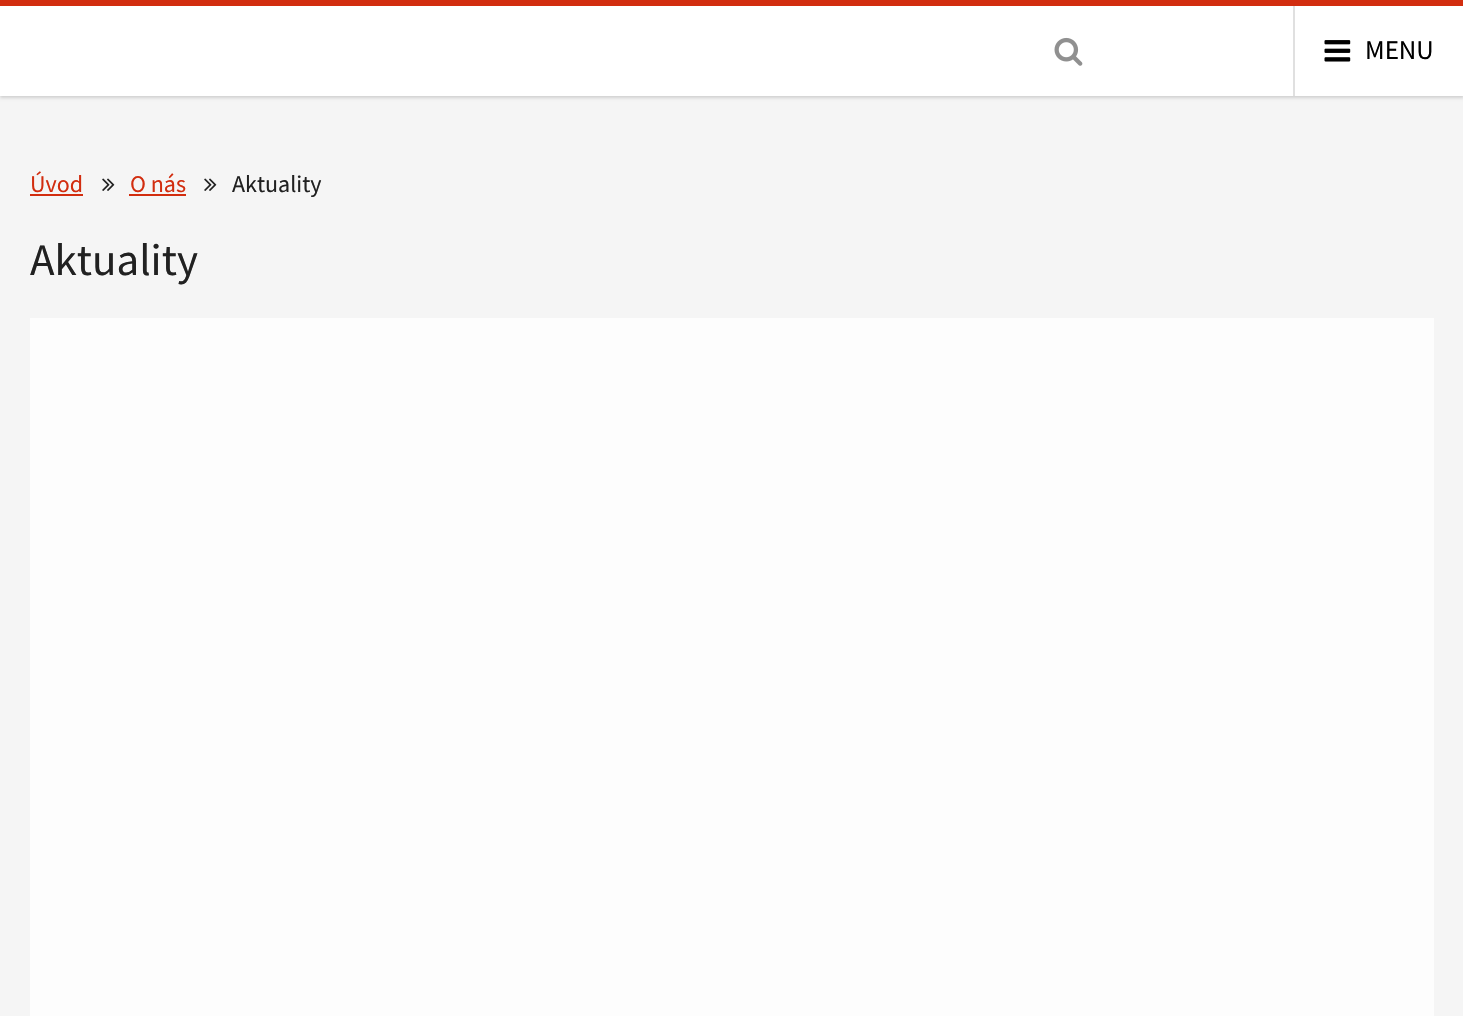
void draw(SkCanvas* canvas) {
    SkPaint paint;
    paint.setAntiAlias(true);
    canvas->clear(0xFFF5F5F5);
    paint.setColor(0x26000000);
    paint.setMaskFilter(SkMaskFilter::MakeBlur(kNormal_SkBlurStyle, 1.5f));
    canvas->drawRect(SkRect::MakeXYWH(0, 2, 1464, 96), paint);
    paint.setMaskFilter(nullptr);
    paint.setColor(0xFFFFFFFF);
    canvas->drawRect(SkRect::MakeXYWH(0, 6, 1463, 90), paint);
    paint.setColor(0xFFD22D0F);
    canvas->drawRect(SkRect::MakeXYWH(0, 0, 1463, 6), paint);
    canvas->drawImageRect(SkImages::DeferredFromEncodedData(SkData::MakeFromFileName("img1.png")), SkRect::MakeXYWH(1054, 37, 29, 29), SkSamplingOptions());
    paint.setColor(0xFFE0E0E0);
    canvas->drawRect(SkRect::MakeXYWH(1293, 6, 2, 90), paint);
    canvas->drawImageRect(SkImages::DeferredFromEncodedData(SkData::MakeFromFileName("img2.png")), SkRect::MakeXYWH(1324, 40, 27, 22), SkSamplingOptions());
    SkFont font1(fontMgr->matchFamilyStyle("Source Sans Pro", SkFontStyle::Normal()), 27);
    font1.setSubpixel(true);
    paint.setColor(0xFF000000);
    canvas->drawString("MENU", 1365, 59, font1, paint);
    SkFont font2(fontMgr->matchFamilyStyle("Source Sans Pro", SkFontStyle::Normal()), 24);
    font2.setSubpixel(true);
    paint.setColor(0xFFD22D0F);
    canvas->drawString("Úvod", 30, 192, font2, paint);
    canvas->drawRect(SkRect::MakeXYWH(30, 194, 53, 2), paint);
    canvas->drawImageRect(SkImages::DeferredFromEncodedData(SkData::MakeFromFileName("img3.png")), SkRect::MakeXYWH(102, 178, 13, 13), SkSamplingOptions());
    canvas->drawString("O nás", 130, 192, font2, paint);
    canvas->drawRect(SkRect::MakeXYWH(129, 194, 57, 2), paint);
    canvas->drawImageRect(SkImages::DeferredFromEncodedData(SkData::MakeFromFileName("img3.png")), SkRect::MakeXYWH(204, 178, 13, 13), SkSamplingOptions());
    paint.setColor(0xFF212121);
    canvas->drawString("Aktuality", 232, 192, font2, paint);
    SkFont font3(fontMgr->matchFamilyStyle("Source Sans Pro", SkFontStyle::Normal()), 45);
    font3.setSubpixel(true);
    canvas->drawString("Aktuality", 30, 275, font3, paint);
    paint.setColor(0xFFFDFDFD);
    canvas->drawRect(SkRect::MakeXYWH(30, 318, 1404, 698), paint);
}
